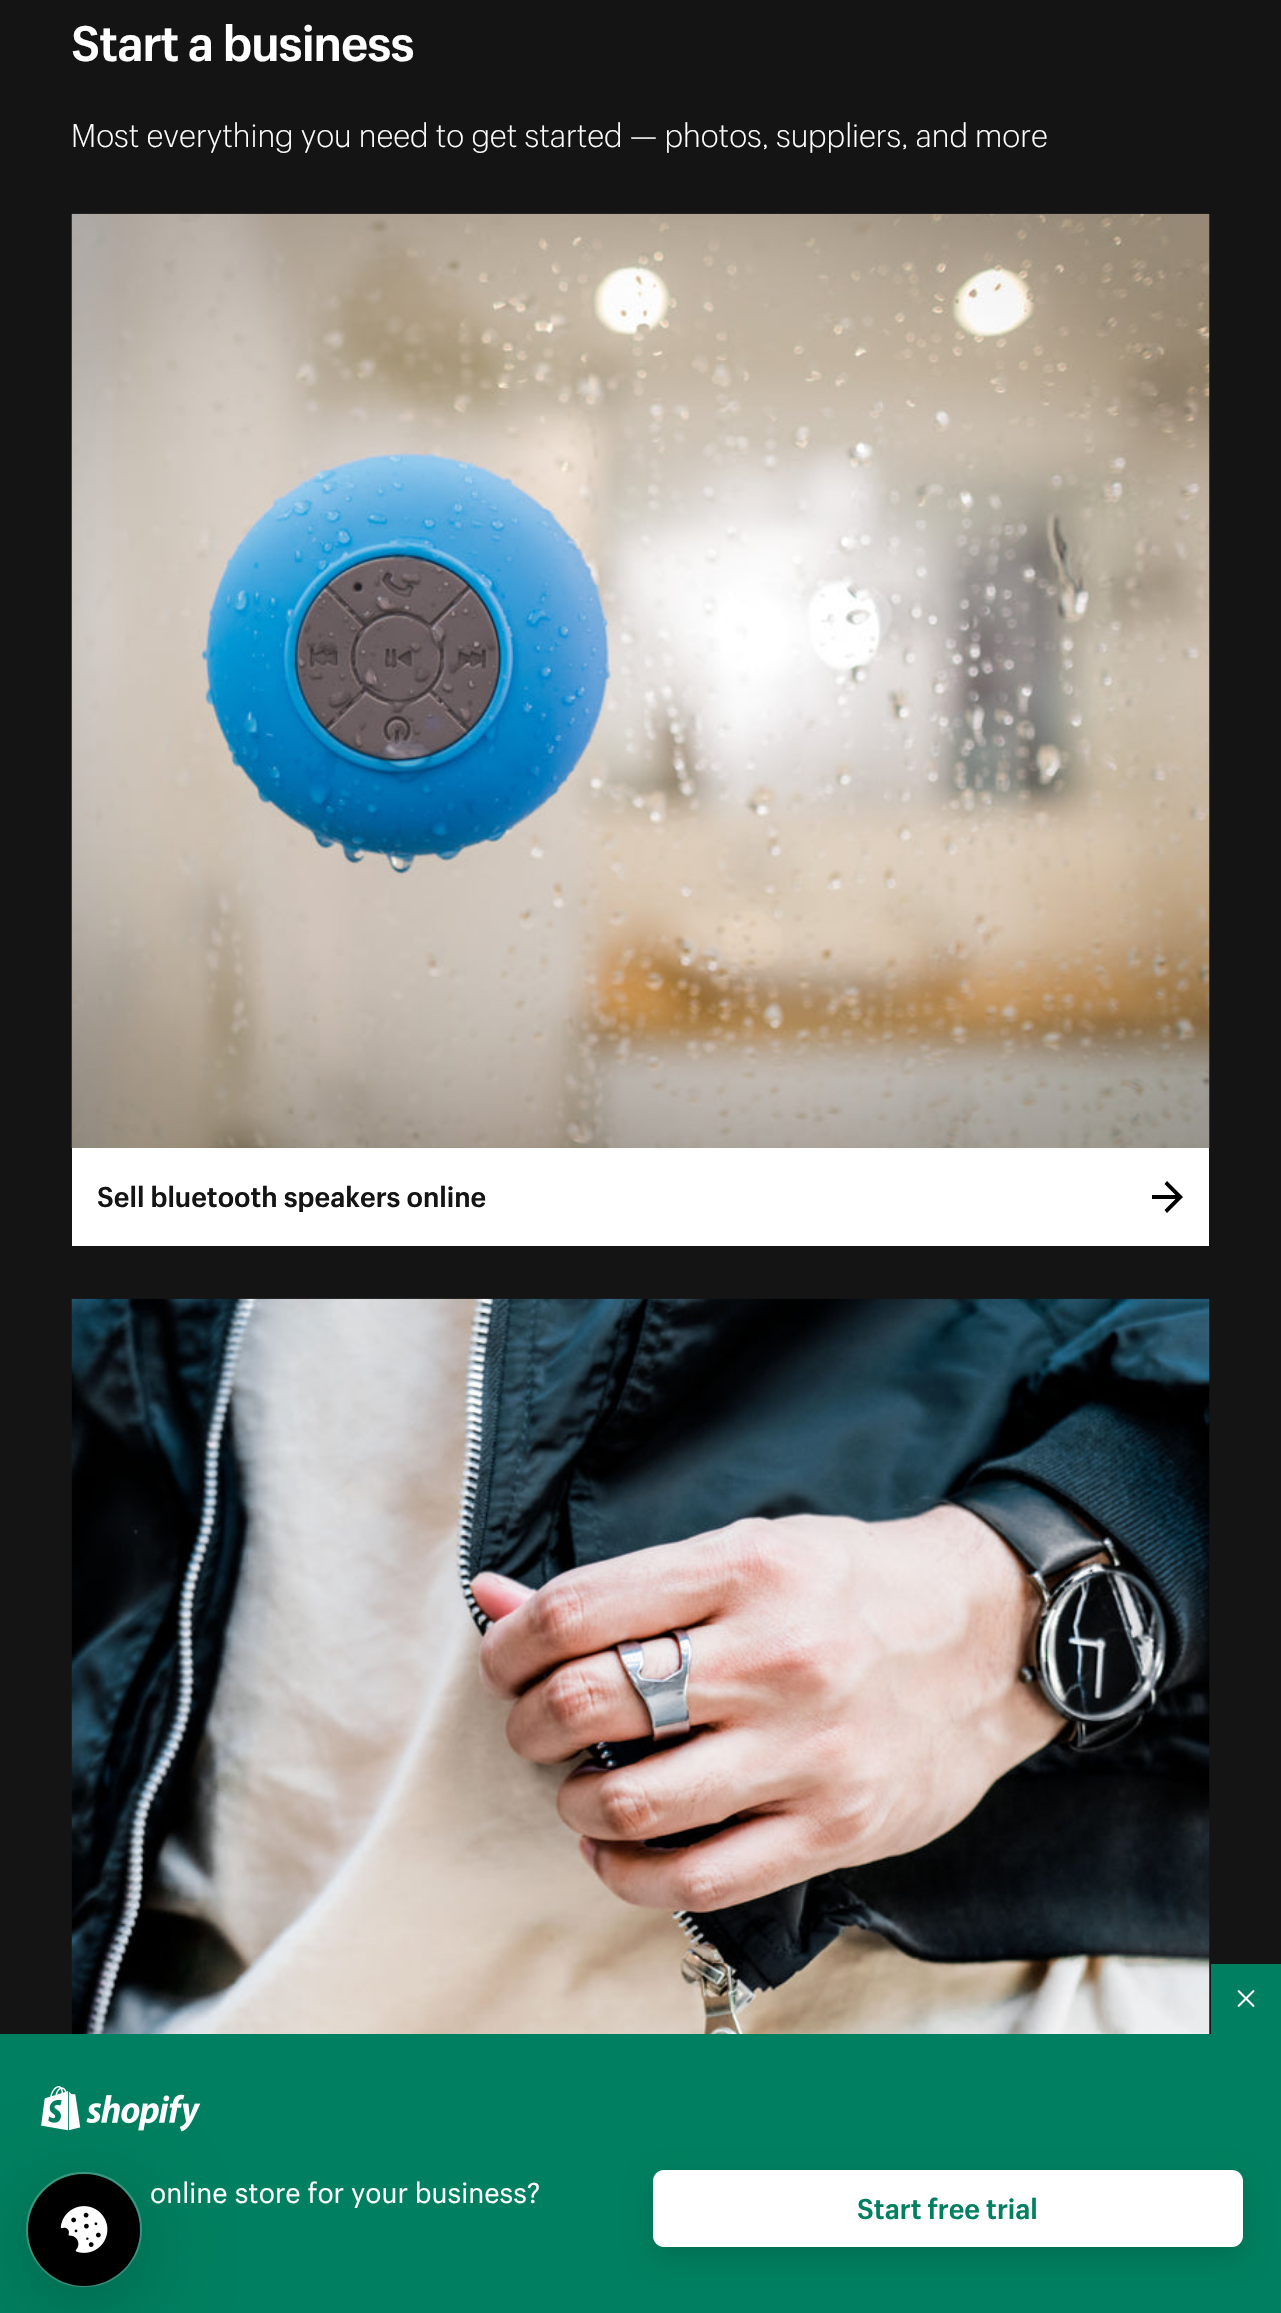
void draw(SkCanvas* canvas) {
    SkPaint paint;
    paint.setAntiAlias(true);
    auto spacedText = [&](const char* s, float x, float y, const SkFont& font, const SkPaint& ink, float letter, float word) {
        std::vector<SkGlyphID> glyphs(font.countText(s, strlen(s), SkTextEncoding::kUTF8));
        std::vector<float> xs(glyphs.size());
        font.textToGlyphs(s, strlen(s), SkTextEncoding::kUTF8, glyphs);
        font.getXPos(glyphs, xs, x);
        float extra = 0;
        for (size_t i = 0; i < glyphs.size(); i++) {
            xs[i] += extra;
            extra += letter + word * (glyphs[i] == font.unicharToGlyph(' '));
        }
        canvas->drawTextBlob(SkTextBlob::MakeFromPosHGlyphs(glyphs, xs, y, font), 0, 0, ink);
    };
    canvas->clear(0xFF141414);
    SkFont font1(fontMgr->matchFamilyStyle("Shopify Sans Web", SkFontStyle::Bold()), 48.75f);
    font1.setSubpixel(true);
    paint.setColor(0xFFFFFFFF);
    spacedText("Start a business", 71, 61, font1, paint, -1, 0);
    SkFont font2(fontMgr->matchFamilyStyle("Shopify Sans Web", SkFontStyle(300, SkFontStyle::kNormal_Width, SkFontStyle::kUpright_Slant)), 32.15f);
    font2.setSubpixel(true);
    spacedText("Most everything you need to get started — photos, suppliers, and more", 71, 147, font2, paint, 0, -0.25f);
    canvas->drawImageRect(SkImages::DeferredFromEncodedData(SkData::MakeFromFileName("img1.png")), SkRect::MakeXYWH(71, 213, 1139, 935), SkSamplingOptions());
    canvas->drawRect(SkRect::MakeXYWH(72, 1148, 1137, 98), paint);
    SkFont font3(fontMgr->matchFamilyStyle("Shopify Sans Web", SkFontStyle::Bold()), 28);
    font3.setSubpixel(true);
    paint.setColor(0xFF141414);
    canvas->drawString("Sell bluetooth speakers online", 97, 1207, font3, paint);
    canvas->save();
    canvas->clipRect(SkRect::MakeXYWH(1152, 1181, 31, 32));
    paint.setColor(0xFF000000);
    canvas->drawPath(SkPathBuilder(SkPathFillType::kEvenOdd).moveTo(1167, 1181).lineTo(1164.5f, 1184).lineTo(1175.5f, 1195).lineTo(1151.5f, 1195).lineTo(1151.5f, 1199).lineTo(1175.5f, 1199).lineTo(1164.5f, 1210).lineTo(1167, 1213).lineTo(1183, 1197).detach(), paint);
    canvas->restore();
    canvas->drawImageRect(SkImages::DeferredFromEncodedData(SkData::MakeFromFileName("img2.png")), SkRect::MakeXYWH(71, 1298, 1139, 736), SkSamplingOptions());
    paint.setColor(0xFF008060);
    canvas->drawRect(SkRect::MakeXYWH(1211, 1964, 70, 70), paint);
    canvas->drawImageRect(SkImages::DeferredFromEncodedData(SkData::MakeFromFileName("img3.png")), SkRect::MakeXYWH(1237, 1990, 18, 17), SkSamplingOptions());
    canvas->drawRect(SkRect::MakeXYWH(0, 2034, 1281, 279), paint);
    canvas->drawImageRect(SkImages::DeferredFromEncodedData(SkData::MakeFromFileName("img4.png")), SkRect::MakeXYWH(41, 2086, 160, 46), SkSamplingOptions());
    SkFont font4(fontMgr->matchFamilyStyle("Shopify Sans Web", SkFontStyle::Normal()), 28);
    font4.setSubpixel(true);
    paint.setColor(0xFFFFFFFF);
    canvas->drawString("online store for your business?", 150, 2203, font4, paint);
    paint.setColor(0x26000000);
    paint.setMaskFilter(SkMaskFilter::MakeBlur(kNormal_SkBlurStyle, 13));
    canvas->drawRoundRect(SkRect::MakeXYWH(653, 2179, 590, 77), 11, 11, paint);
    paint.setMaskFilter(nullptr);
    paint.setColor(0xFFFFFFFF);
    canvas->drawRoundRect(SkRect::MakeXYWH(653, 2170, 590, 77), 11, 11, paint);
    paint.setColor(0xFF008060);
    canvas->drawString("Start free trial", 857, 2219, font3, paint);
    paint.setStyle(SkPaint::kStroke_Style);
    paint.setStrokeWidth(2);
    paint.setColor(0x40FFFFFF);
    canvas->drawRoundRect(SkRect::MakeXYWH(27, 2173, 114, 113), 56.5f, 56.5f, paint);
    paint.setStyle(SkPaint::kFill_Style);
    paint.setColor(0x40000000);
    paint.setMaskFilter(SkMaskFilter::MakeBlur(kNormal_SkBlurStyle, 44));
    canvas->drawRoundRect(SkRect::MakeXYWH(28, 2191, 112, 112), 56, 56, paint);
    paint.setMaskFilter(nullptr);
    paint.setColor(0xFF000000);
    canvas->drawCircle(84, 2230, 56, paint);
    canvas->drawImageRect(SkImages::DeferredFromEncodedData(SkData::MakeFromFileName("img5.png")), SkRect::MakeXYWH(60, 2206, 48, 47), SkSamplingOptions());
}
